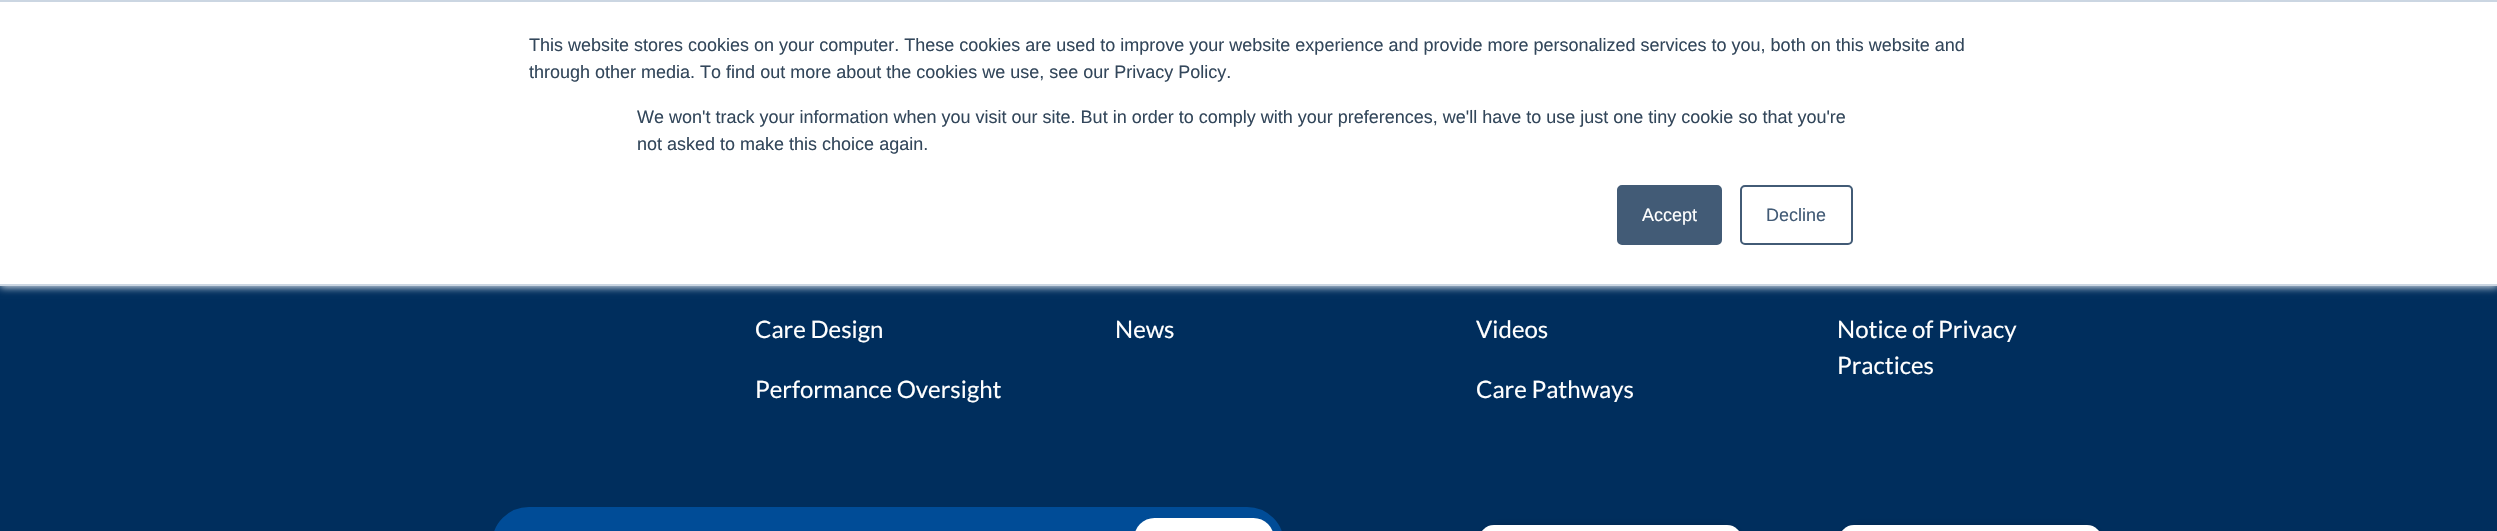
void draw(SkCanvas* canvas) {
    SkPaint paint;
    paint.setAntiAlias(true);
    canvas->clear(0xFF002E5D);
    paint.setColor(0xFFEAF0F6);
    paint.setMaskFilter(SkMaskFilter::MakeBlur(kNormal_SkBlurStyle, 4));
    canvas->drawRect(SkRect::MakeXYWH(0, 2, 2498, 285), paint);
    paint.setMaskFilter(nullptr);
    paint.setColor(0xFFFFFFFF);
    canvas->drawRect(SkRect::MakeXYWH(0, 2, 2497, 282), paint);
    paint.setColor(0xFFCBD6E2);
    canvas->drawRect(SkRect::MakeXYWH(0, 0, 2497, 2), paint);
    canvas->drawRect(SkRect::MakeXYWH(0, 284, 2497, 2), paint);
    SkFont font1(fontMgr->matchFamilyStyle("Liberation Sans", SkFontStyle::Normal()), 18);
    font1.setSubpixel(true);
    paint.setColor(0xFF33475B);
    canvas->drawString("This website stores cookies on your computer. These cookies are used to improve your website experience and provide more personalized services to you, both on this website and", 529, 51, font1, paint);
    canvas->drawString("through other media. To find out more about the cookies we use, see our Privacy Policy.", 529, 78, font1, paint);
    canvas->drawString("We won't track your information when you visit our site. But in order to comply with your preferences, we'll have to use just one tiny cookie so that you're", 637, 123, font1, paint);
    canvas->drawString("not asked to make this choice again.", 637, 150, font1, paint);
    paint.setColor(0xFF425B76);
    canvas->drawRoundRect(SkRect::MakeXYWH(1618, 186, 103, 58), 4, 4, paint);
    paint.setStyle(SkPaint::kStroke_Style);
    paint.setStrokeWidth(2);
    canvas->drawRoundRect(SkRect::MakeXYWH(1618, 186, 103, 58), 4, 4, paint);
    paint.setStyle(SkPaint::kFill_Style);
    paint.setColor(0xFFFFFFFF);
    canvas->drawString("Accept", 1642, 221, font1, paint);
    paint.setStyle(SkPaint::kStroke_Style);
    paint.setColor(0xFF425B76);
    canvas->drawRoundRect(SkRect::MakeXYWH(1741, 186, 111, 58), 4, 4, paint);
    paint.setStyle(SkPaint::kFill_Style);
    canvas->drawString("Decline", 1766, 221, font1, paint);
    SkFont font2(fontMgr->matchFamilyStyle("Lato", SkFontStyle::Normal()), 24);
    font2.setSubpixel(true);
    paint.setColor(0xFFFFFFFF);
    canvas->drawString("Care Design", 755, 338, font2, paint);
    canvas->drawString("Performance Oversight", 755, 398, font2, paint);
    canvas->drawString("News", 1115, 338, font2, paint);
    canvas->drawString("Videos", 1476, 338, font2, paint);
    canvas->drawString("Care Pathways", 1476, 398, font2, paint);
    canvas->drawString("Notice of Privacy", 1837, 338, font2, paint);
    canvas->drawString("Practices", 1837, 374, font2, paint);
    paint.setStyle(SkPaint::kStroke_Style);
    paint.setStrokeWidth(11);
    paint.setColor(0xFF004C97);
    canvas->drawRoundRect(SkRect::MakeXYWH(497.5f, 512.5f, 781, 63), 33, 33, paint);
    paint.setStyle(SkPaint::kFill_Style);
    canvas->drawRoundRect(SkRect::MakeXYWH(503, 518, 771, 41), 27.5f, 27.5f, paint);
    canvas->drawRoundRect(SkRect::MakeXYWH(503, 518, 631, 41), 27.5f, 27.5f, paint);
    paint.setColor(0xFFFFFFFF);
    canvas->drawRoundRect(SkRect::MakeXYWH(1134, 518, 140, 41), 27.5f, 27.5f, paint);
    paint.setColor(0x4D000000);
    paint.setMaskFilter(SkMaskFilter::MakeBlur(kNormal_SkBlurStyle, 4.5f));
    canvas->drawRoundRect(SkRect::MakeXYWH(1481, 527, 259, 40), 22.5f, 22.5f, paint);
    paint.setMaskFilter(nullptr);
    paint.setColor(0xFFFFFFFF);
    canvas->drawRoundRect(SkRect::MakeXYWH(1479, 525, 263, 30), 24, 24, paint);
    paint.setColor(0x4D000000);
    paint.setMaskFilter(SkMaskFilter::MakeBlur(kNormal_SkBlurStyle, 4.5f));
    canvas->drawRoundRect(SkRect::MakeXYWH(1841, 527, 259, 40), 22.5f, 22.5f, paint);
    paint.setMaskFilter(nullptr);
    paint.setColor(0xFFFFFFFF);
    canvas->drawRoundRect(SkRect::MakeXYWH(1839, 525, 263, 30), 24, 24, paint);
}
